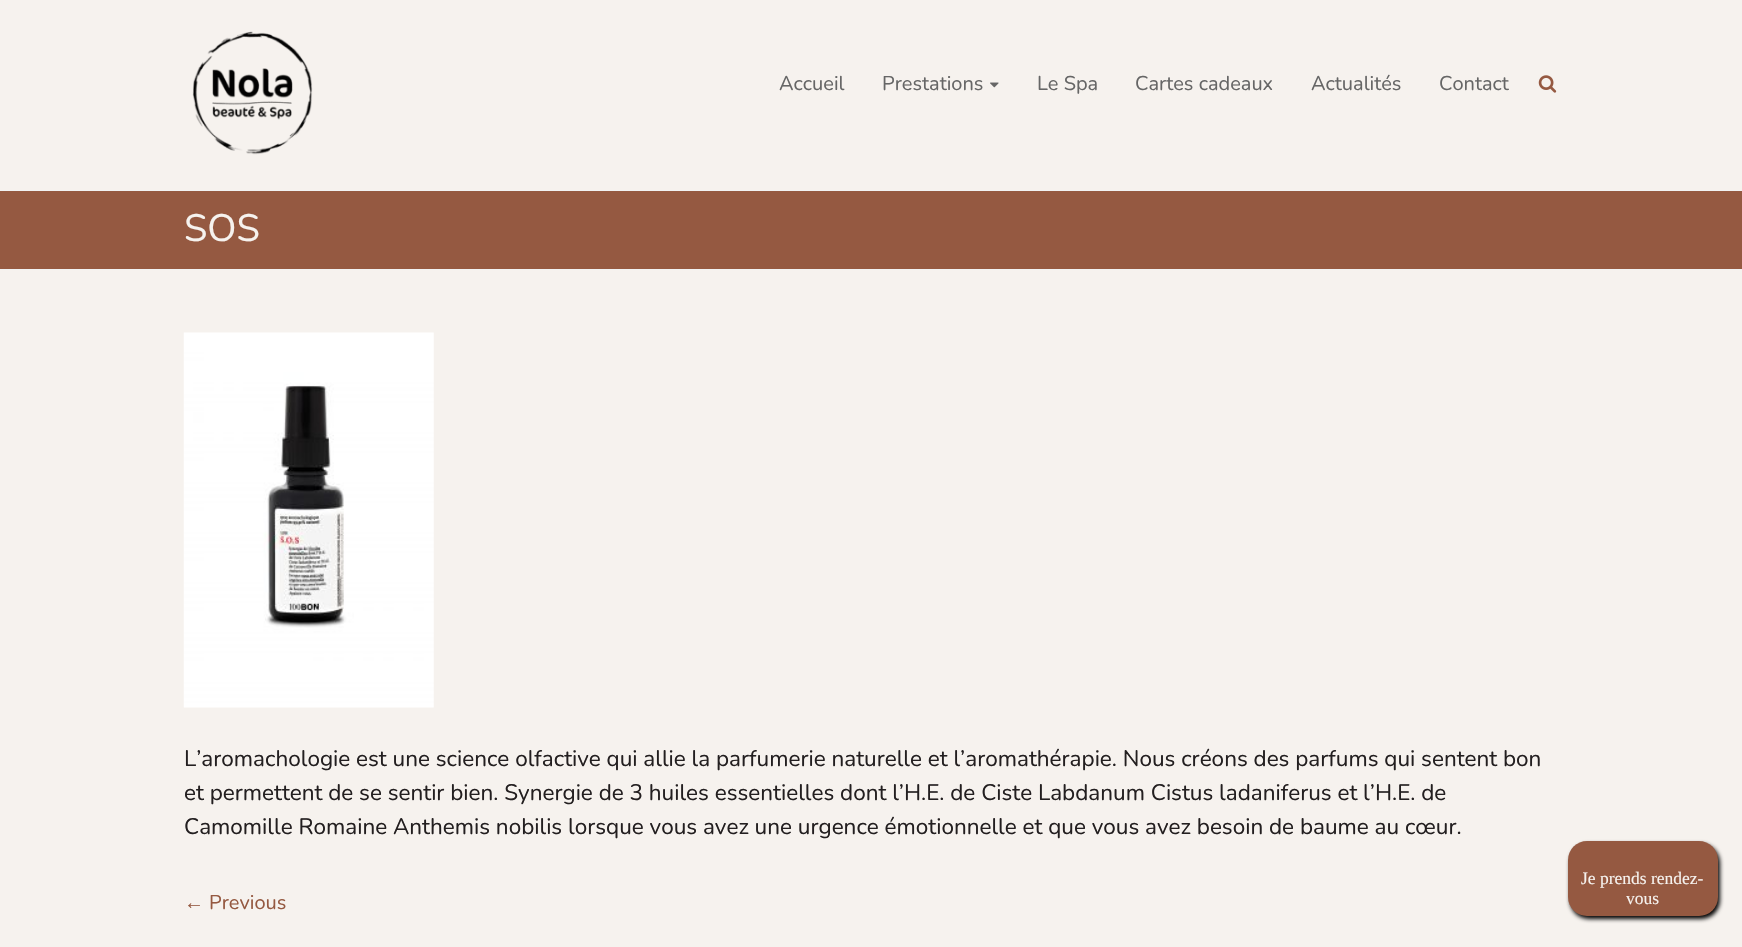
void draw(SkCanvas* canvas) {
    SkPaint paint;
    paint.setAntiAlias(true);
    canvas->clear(0xFFF6F2EE);
    paint.setColor(0xFFF2F2F2);
    canvas->drawRect(SkRect::MakeXYWH(0, 190, 1742, 1), paint);
    canvas->drawImageRect(SkImages::DeferredFromEncodedData(SkData::MakeFromFileName("img1.png")), SkRect::MakeXYWH(192, 31, 121, 124), SkSamplingOptions());
    SkFont font1(fontMgr->matchFamilyStyle("Nunito", SkFontStyle(200, SkFontStyle::kNormal_Width, SkFontStyle::kUpright_Slant)), 20);
    font1.setSubpixel(true);
    paint.setColor(0xFF666666);
    canvas->drawString("Accueil", 779, 90, font1, paint);
    canvas->drawString("Prestations", 882, 90, font1, paint);
    canvas->drawImageRect(SkImages::DeferredFromEncodedData(SkData::MakeFromFileName("img2.png")), SkRect::MakeXYWH(990, 82, 9, 6), SkSamplingOptions());
    canvas->drawString("Le Spa", 1037, 90, font1, paint);
    canvas->drawString("Cartes cadeaux", 1135, 90, font1, paint);
    canvas->drawString("Actualités", 1311, 90, font1, paint);
    canvas->drawString("Contact", 1439, 90, font1, paint);
    canvas->drawImageRect(SkImages::DeferredFromEncodedData(SkData::MakeFromFileName("img3.png")), SkRect::MakeXYWH(1538, 75, 19, 18), SkSamplingOptions());
    paint.setColor(0xFF955941);
    canvas->drawRect(SkRect::MakeXYWH(0, 191, 1742, 78), paint);
    paint.setColor(0xFFF2F2F2);
    canvas->drawRect(SkRect::MakeXYWH(0, 269, 1742, 1), paint);
    SkFont font2(fontMgr->matchFamilyStyle("Nunito", SkFontStyle(200, SkFontStyle::kNormal_Width, SkFontStyle::kUpright_Slant)), 38);
    font2.setSubpixel(true);
    paint.setColor(0xFFF6F2EE);
    canvas->drawString("SOS", 184, 241, font2, paint);
    canvas->drawImageRect(SkImages::DeferredFromEncodedData(SkData::MakeFromFileName("img4.png")), SkRect::MakeXYWH(183, 332, 251, 376), SkSamplingOptions());
    SkFont font3(fontMgr->matchFamilyStyle("Nunito", SkFontStyle(200, SkFontStyle::kNormal_Width, SkFontStyle::kUpright_Slant)), 22.5f);
    font3.setSubpixel(true);
    paint.setColor(0xFF231F20);
    canvas->drawString("L’aromachologie est une science olfactive qui allie la parfumerie naturelle et l’aromathérapie. Nous créons des parfums qui sentent bon", 184, 766, font3, paint);
    canvas->drawString("et permettent de se sentir bien. Synergie de 3 huiles essentielles dont l’H.E. de Ciste Labdanum Cistus ladaniferus et l’H.E. de", 184, 800, font3, paint);
    canvas->drawString("Camomille Romaine Anthemis nobilis lorsque vous avez une urgence émotionnelle et que vous avez besoin de baume au cœur.", 184, 834, font3, paint);
    SkFont font4(fontMgr->matchFamilyStyle("Liberation Sans", SkFontStyle::Normal()), 20);
    font4.setSubpixel(true);
    paint.setColor(0xFF955941);
    canvas->drawString("←", 184, 909, font4, paint);
    canvas->drawString("Previous", 209, 909, font1, paint);
    paint.setColor(0xFF020202);
    paint.setMaskFilter(SkMaskFilter::MakeBlur(kNormal_SkBlurStyle, 2));
    canvas->drawRoundRect(SkRect::MakeXYWH(1570, 844, 150, 75), 19, 19, paint);
    paint.setMaskFilter(nullptr);
    paint.setColor(0xFF955941);
    canvas->drawRoundRect(SkRect::MakeXYWH(1568, 841, 150, 75), 19, 19, paint);
    SkFont font5(fontMgr->matchFamilyStyle("Liberation Serif", SkFontStyle::Normal()), 17.5f);
    font5.setSubpixel(true);
    paint.setColor(0xFFF6F2EE);
    canvas->drawString("Je prends rendez-", 1581, 884, font5, paint);
    canvas->drawString("vous", 1626, 904, font5, paint);
}
